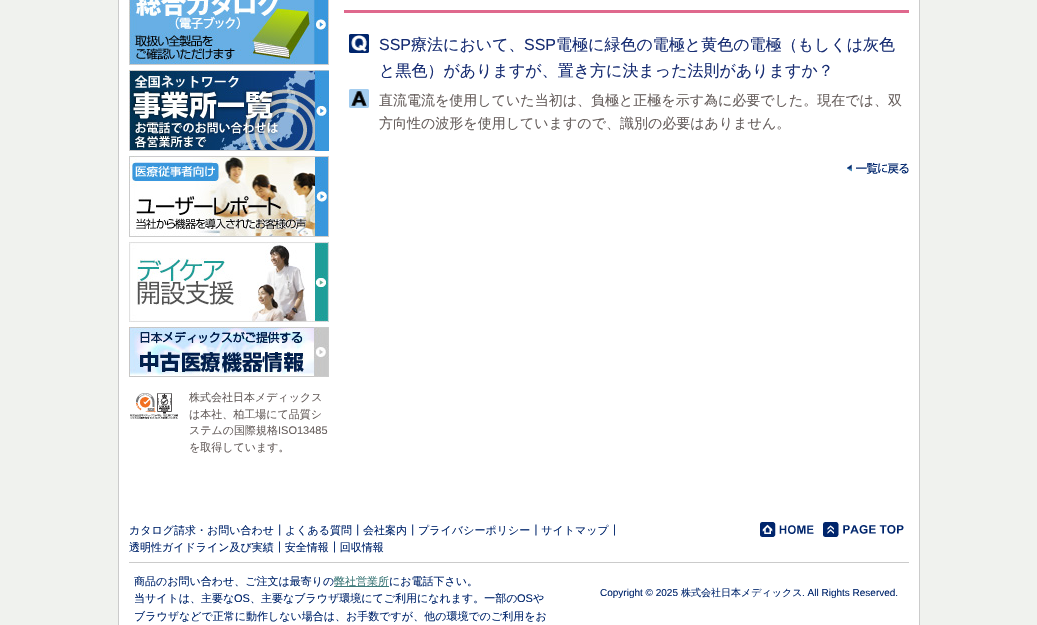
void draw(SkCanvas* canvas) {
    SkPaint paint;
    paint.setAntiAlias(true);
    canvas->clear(0xFFF0F2EE);
    paint.setColor(0xFFFFFFFF);
    canvas->drawRect(SkRect::MakeXYWH(119, 0, 800, 625), paint);
    paint.setColor(0xFFCBCBCB);
    canvas->drawRect(SkRect::MakeXYWH(919, 0, 1, 625), paint);
    canvas->drawRect(SkRect::MakeXYWH(118, 0, 1, 625), paint);
    paint.setColor(0xFFDF688D);
    canvas->drawRect(SkRect::MakeXYWH(344, 10, 565, 3), paint);
    canvas->drawImageRect(SkImages::DeferredFromEncodedData(SkData::MakeFromFileName("img1.png")), SkRect::MakeXYWH(349, 34, 20, 19), SkSamplingOptions());
    SkFont font1(fontMgr->matchFamilyStyle("Liberation Sans", SkFontStyle::Normal()), 16);
    font1.setSubpixel(true);
    paint.setColor(0xFF172D73);
    canvas->drawString("SSP", 379, 50, font1, paint);
    SkFont font2(fontMgr->matchFamilyStyle("WenQuanYi Zen Hei", SkFontStyle(500, SkFontStyle::kNormal_Width, SkFontStyle::kUpright_Slant)), 16);
    font2.setSubpixel(true);
    canvas->drawString("療法において、", 411, 50, font2, paint);
    canvas->drawString("SSP", 524, 50, font1, paint);
    canvas->drawString("電極に緑色の電極と黄色の電極（もしくは灰色", 556, 50, font2, paint);
    canvas->drawString("と黒色）がありますが、置き方に決まった法則がありますか？", 379, 76, font2, paint);
    canvas->drawImageRect(SkImages::DeferredFromEncodedData(SkData::MakeFromFileName("img2.png")), SkRect::MakeXYWH(349, 89, 20, 19), SkSamplingOptions());
    SkFont font3(fontMgr->matchFamilyStyle("WenQuanYi Zen Hei", SkFontStyle(500, SkFontStyle::kNormal_Width, SkFontStyle::kUpright_Slant)), 14);
    font3.setSubpixel(true);
    paint.setColor(0xFF675F5D);
    canvas->drawString("直流電流を使用していた当初は、負極と正極を示す為に必要でした。現在では、双", 379, 105, font3, paint);
    canvas->drawString("方向性の波形を使用していますので、識別の必要はありません。", 379, 128, font3, paint);
    canvas->drawImageRect(SkImages::DeferredFromEncodedData(SkData::MakeFromFileName("img3.png")), SkRect::MakeXYWH(847, 162, 62, 12), SkSamplingOptions());
    canvas->drawImageRect(SkImages::DeferredFromEncodedData(SkData::MakeFromFileName("img4.png")), SkRect::MakeXYWH(129, 0, 200, 65), SkSamplingOptions());
    canvas->drawImageRect(SkImages::DeferredFromEncodedData(SkData::MakeFromFileName("img5.png")), SkRect::MakeXYWH(129, 70, 200, 81), SkSamplingOptions());
    canvas->drawImageRect(SkImages::DeferredFromEncodedData(SkData::MakeFromFileName("img6.png")), SkRect::MakeXYWH(129, 156, 200, 81), SkSamplingOptions());
    canvas->drawImageRect(SkImages::DeferredFromEncodedData(SkData::MakeFromFileName("img7.png")), SkRect::MakeXYWH(129, 242, 200, 80), SkSamplingOptions());
    canvas->drawImageRect(SkImages::DeferredFromEncodedData(SkData::MakeFromFileName("img8.png")), SkRect::MakeXYWH(129, 327, 200, 50), SkSamplingOptions());
    canvas->drawImageRect(SkImages::DeferredFromEncodedData(SkData::MakeFromFileName("img9.png")), SkRect::MakeXYWH(130, 393, 48, 26), SkSamplingOptions());
    SkFont font4(fontMgr->matchFamilyStyle("WenQuanYi Zen Hei", SkFontStyle(500, SkFontStyle::kNormal_Width, SkFontStyle::kUpright_Slant)), 11);
    font4.setSubpixel(true);
    canvas->drawString("株式会社日本メディックス", 189, 401, font4, paint);
    canvas->drawString("は本社、柏工場にて品質シ", 189, 418, font4, paint);
    canvas->drawString("ステムの国際規格", 189, 434, font4, paint);
    SkFont font5(fontMgr->matchFamilyStyle("Liberation Sans", SkFontStyle::Normal()), 11);
    font5.setSubpixel(true);
    canvas->drawString("ISO13485", 278, 434, font5, paint);
    canvas->drawString("を取得しています。", 189, 451, font4, paint);
    paint.setColor(0xFFCBCBCB);
    canvas->drawRect(SkRect::MakeXYWH(129, 562, 780, 1), paint);
    paint.setColor(0xFF00256C);
    canvas->drawString("カタログ請求・お問い合わせ┃よくある質問┃会社案内┃プライバシーポリシー┃サイトマップ┃", 129, 534, font4, paint);
    canvas->drawString("透明性ガイドライン及び実績┃安全情報┃回収情報", 129, 551, font4, paint);
    canvas->drawImageRect(SkImages::DeferredFromEncodedData(SkData::MakeFromFileName("img10.png")), SkRect::MakeXYWH(760, 522, 54, 15), SkSamplingOptions());
    canvas->drawImageRect(SkImages::DeferredFromEncodedData(SkData::MakeFromFileName("img11.png")), SkRect::MakeXYWH(823, 522, 81, 15), SkSamplingOptions());
    canvas->drawString("商品のお問い合わせ、ご注文は最寄りの", 134, 585, font4, paint);
    paint.setColor(0xFF3E7A7A);
    canvas->drawRect(SkRect::MakeXYWH(334, 586, 55, 1), paint);
    canvas->drawString("弊社営業所", 334, 585, font4, paint);
    paint.setColor(0xFF00256C);
    canvas->drawString("にお電話下さい。", 389, 585, font4, paint);
    canvas->drawString("当サイトは、主要な", 134, 602, font4, paint);
    canvas->drawString("OS", 234, 602, font5, paint);
    canvas->drawString("、主要なブラウザ環境にてご利用になれます。一部の", 250, 602, font4, paint);
    canvas->drawString("OS", 517, 602, font5, paint);
    canvas->drawString("や", 533, 602, font4, paint);
    canvas->drawString("ブラウザなどで正常に動作しない場合は、お手数ですが、他の環境でのご利用をお", 134, 620, font4, paint);
    SkFont font6(fontMgr->matchFamilyStyle("Liberation Sans", SkFontStyle::Normal()), 10);
    font6.setSubpixel(true);
    canvas->drawString("Copyright © 2025", 600, 596, font6, paint);
    SkFont font7(fontMgr->matchFamilyStyle("WenQuanYi Zen Hei", SkFontStyle(500, SkFontStyle::kNormal_Width, SkFontStyle::kUpright_Slant)), 10);
    font7.setSubpixel(true);
    canvas->drawString("株式会社日本メディックス", 681, 596, font7, paint);
    canvas->drawString(". All Rights Reserved.", 802, 596, font6, paint);
}
